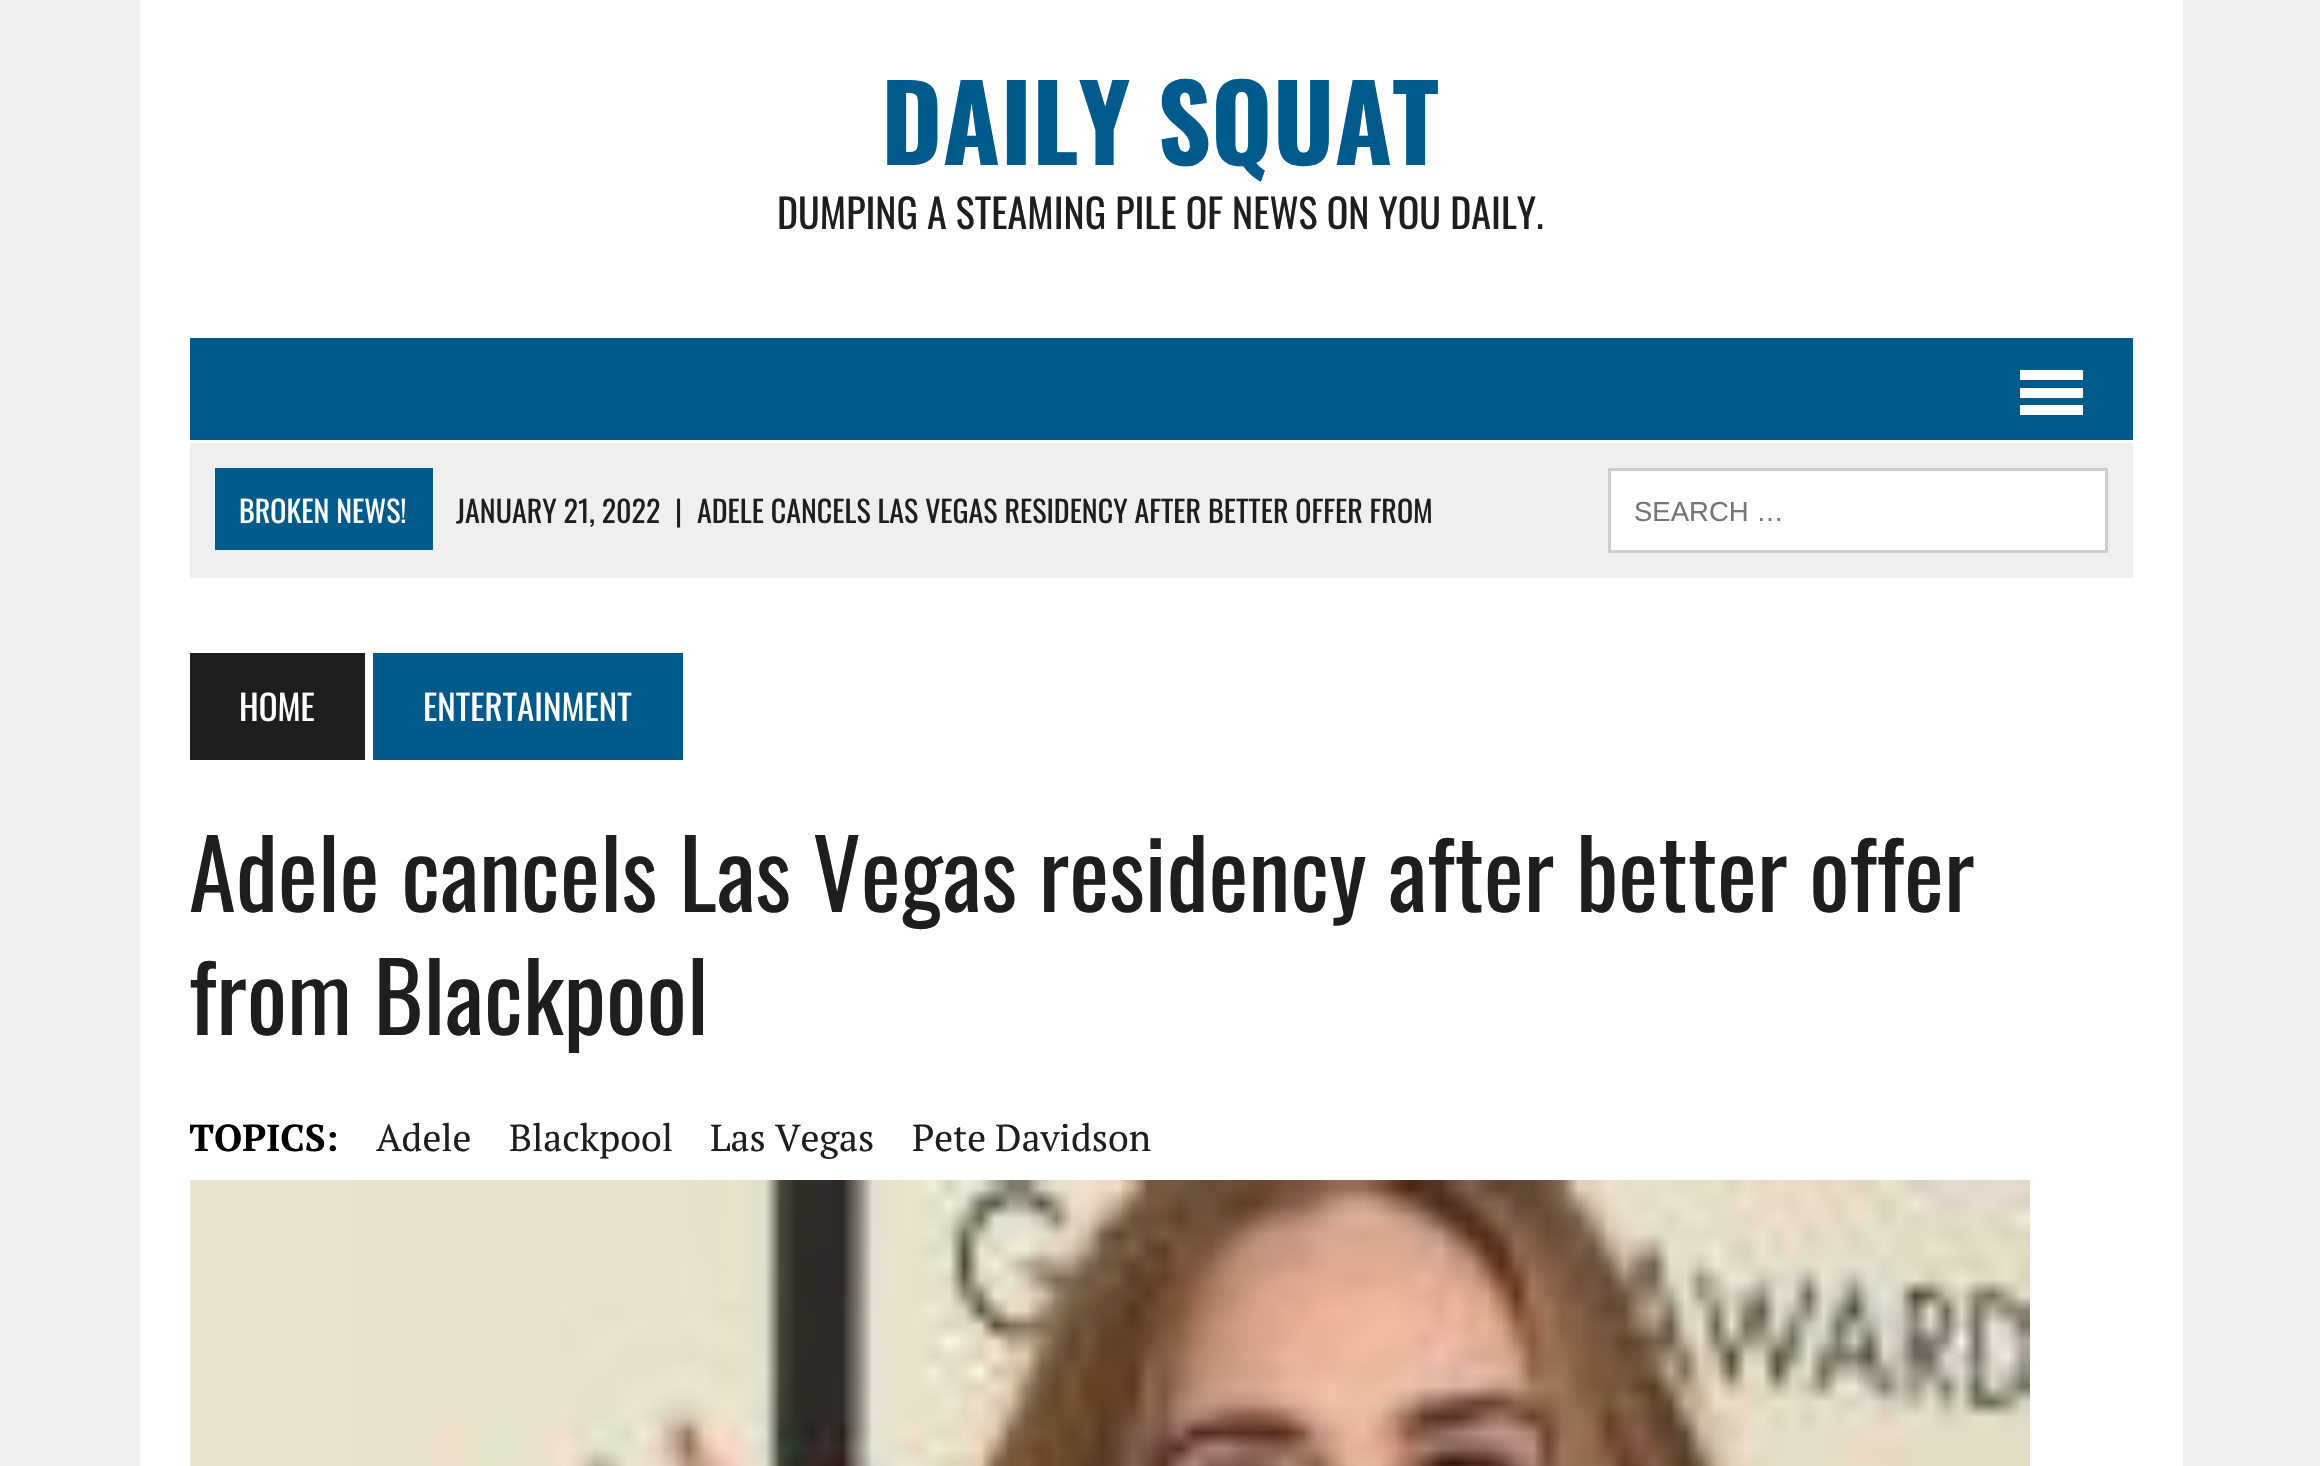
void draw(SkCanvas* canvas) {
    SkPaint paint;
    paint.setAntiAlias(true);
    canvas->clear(0xFFEFEFEF);
    paint.setColor(0xFFFFFFFF);
    canvas->drawRect(SkRect::MakeXYWH(140, 0, 2043, 1466), paint);
    SkFont font1(fontMgr->matchFamilyStyle("Oswald", SkFontStyle::Bold()), 105);
    font1.setSubpixel(true);
    paint.setColor(0xFF005A8C);
    canvas->drawString("DAILY SQUAT", 881, 165, font1, paint);
    SkFont font2(fontMgr->matchFamilyStyle("Oswald", SkFontStyle::Normal()), 40);
    font2.setSubpixel(true);
    paint.setColor(0xFF1F1E1E);
    canvas->drawString("DUMPING A STEAMING PILE OF NEWS ON YOU DAILY.", 777, 229, font2, paint);
    paint.setColor(0xFF005A8C);
    canvas->drawRect(SkRect::MakeXYWH(190, 338, 1943, 102), paint);
    paint.setColor(0xFFFFFFFF);
    canvas->drawRect(SkRect::MakeXYWH(2020, 370, 63, 10), paint);
    canvas->drawRect(SkRect::MakeXYWH(2020, 388, 63, 10), paint);
    canvas->drawRect(SkRect::MakeXYWH(2020, 405, 63, 10), paint);
    paint.setColor(0xFFEFEFEF);
    canvas->drawRect(SkRect::MakeXYWH(190, 443, 1943, 135), paint);
    paint.setColor(0xFF005A8C);
    canvas->drawRect(SkRect::MakeXYWH(215, 468, 218, 82), paint);
    SkFont font3(fontMgr->matchFamilyStyle("Oswald", SkFontStyle::Normal()), 30);
    font3.setSubpixel(true);
    paint.setColor(0xFFFFFFFF);
    canvas->drawString("BROKEN NEWS!", 239, 523, font3, paint);
    paint.setColor(0xFF1F1E1E);
    canvas->drawString("JANUARY 21, 2022", 456, 523, font3, paint);
    canvas->drawString("|", 675, 523, font3, paint);
    canvas->drawString("ADELE CANCELS LAS VEGAS RESIDENCY AFTER BETTER OFFER FROM", 697, 523, font3, paint);
    paint.setColor(0xFFFFFFFF);
    canvas->drawRect(SkRect::MakeXYWH(1609.5f, 469.5f, 497, 82), paint);
    paint.setStyle(SkPaint::kStroke_Style);
    paint.setStrokeWidth(3);
    paint.setColor(0xFFCDCDCD);
    canvas->drawRect(SkRect::MakeXYWH(1609.5f, 469.5f, 497, 82), paint);
    SkFont font4(fontMgr->matchFamilyStyle("Liberation Sans", SkFontStyle::Normal()), 27.5f);
    font4.setSubpixel(true);
    paint.setStyle(SkPaint::kFill_Style);
    paint.setColor(0xFF757575);
    canvas->drawString("SEARCH …", 1634, 521, font4, paint);
    paint.setColor(0xFF1F1E1E);
    canvas->drawRect(SkRect::MakeXYWH(190, 653, 175, 107), paint);
    SkFont font5(fontMgr->matchFamilyStyle("Oswald", SkFontStyle::Normal()), 35);
    font5.setSubpixel(true);
    paint.setColor(0xFFFFFFFF);
    canvas->drawString("HOME", 239, 721, font5, paint);
    paint.setColor(0xFF005A8C);
    canvas->drawRect(SkRect::MakeXYWH(373, 653, 310, 107), paint);
    paint.setColor(0xFFFFFFFF);
    canvas->drawString("ENTERTAINMENT", 423, 721, font5, paint);
    SkFont font6(fontMgr->matchFamilyStyle("Oswald", SkFontStyle::Normal()), 95);
    font6.setSubpixel(true);
    paint.setColor(0xFF1F1E1E);
    canvas->drawString("Adele cancels Las Vegas residency after better offer", 189, 912, font6, paint);
    canvas->drawString("from Blackpool", 189, 1035, font6, paint);
    canvas->save();
    canvas->clipRect(SkRect::MakeXYWH(190, 1108, 1943, 72));
    SkFont font7(fontMgr->matchFamilyStyle("PT Serif", SkFontStyle::Bold()), 37.5f);
    font7.setSubpixel(true);
    paint.setColor(0xFF000000);
    canvas->drawString("TOPICS:", 189, 1151, font7, paint);
    canvas->restore();
    SkFont font8(fontMgr->matchFamilyStyle("PT Serif", SkFontStyle::Normal()), 37.5f);
    font8.setSubpixel(true);
    paint.setColor(0xFF1F1E1E);
    canvas->drawString("Adele", 376, 1151, font8, paint);
    canvas->drawString("Blackpool", 509, 1151, font8, paint);
    canvas->drawString("Las Vegas", 710, 1151, font8, paint);
    canvas->drawString("Pete Davidson", 912, 1151, font8, paint);
    canvas->drawImageRect(SkImages::DeferredFromEncodedData(SkData::MakeFromFileName("img1.png")), SkRect::MakeXYWH(190, 1180, 1840, 286), SkSamplingOptions());
}
